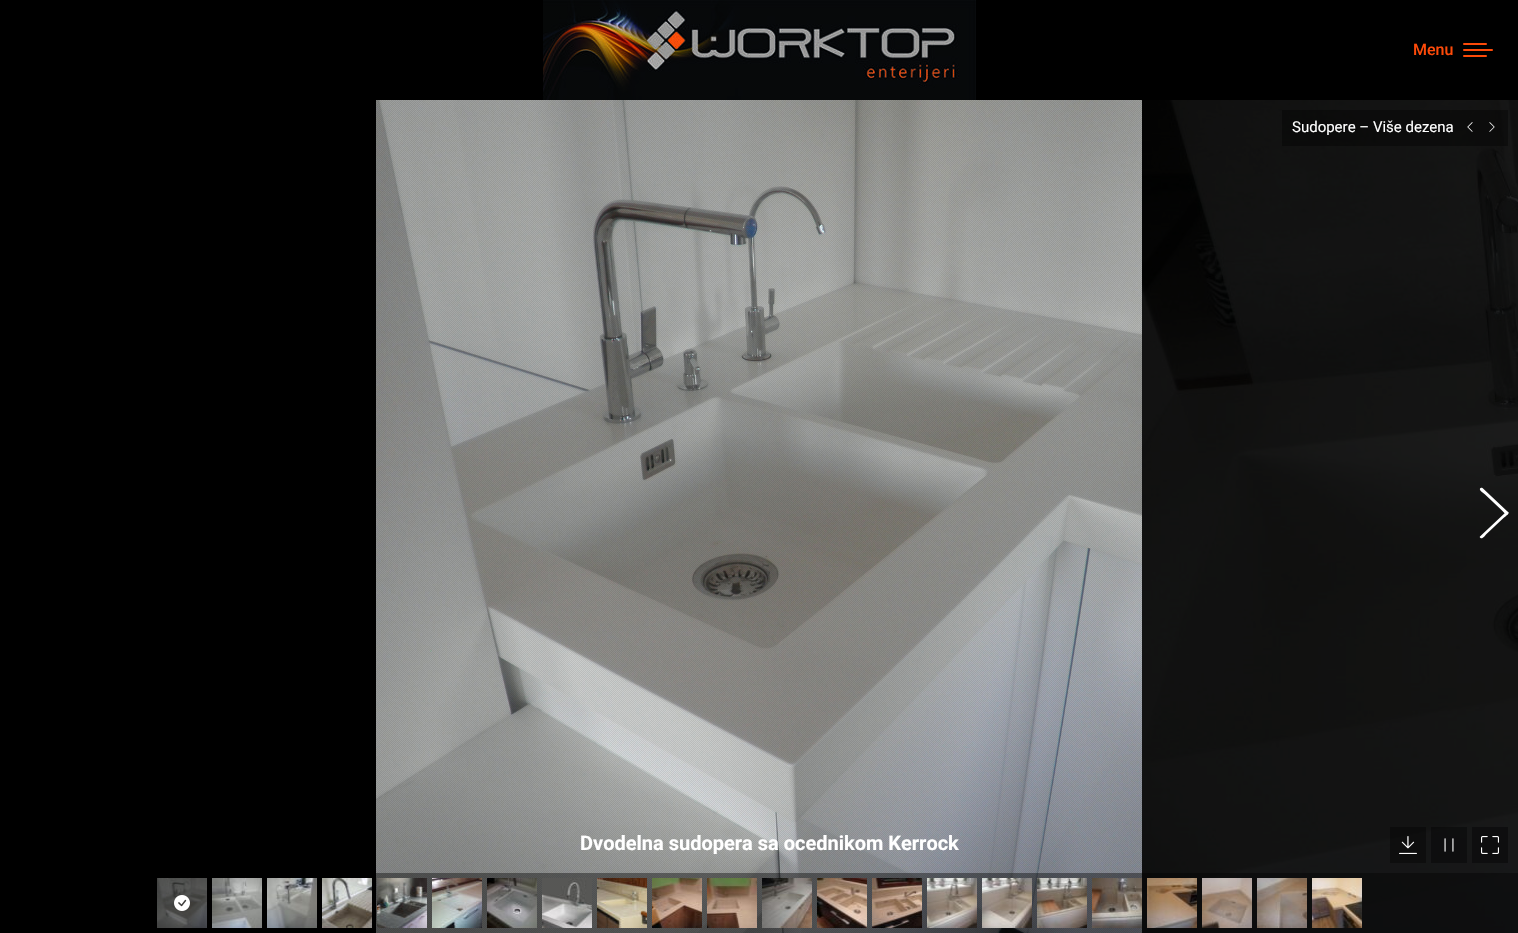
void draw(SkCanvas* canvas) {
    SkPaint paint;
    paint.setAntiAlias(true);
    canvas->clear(0xFF000000);
    canvas->drawImageRect(SkImages::DeferredFromEncodedData(SkData::MakeFromFileName("img1.png")), SkRect::MakeXYWH(543, 0, 433, 100), SkSamplingOptions());
    SkFont font1(fontMgr->matchFamilyStyle("Roboto", SkFontStyle(500, SkFontStyle::kNormal_Width, SkFontStyle::kUpright_Slant)), 16);
    font1.setSubpixel(true);
    paint.setColor(0xFFFD4A09);
    canvas->drawString("Menu", 1413, 55, font1, paint);
    canvas->drawRoundRect(SkRect::MakeXYWH(1463, 43, 24, 2), 1, 1, paint);
    canvas->drawRoundRect(SkRect::MakeXYWH(1463, 49, 30, 2), 1, 1, paint);
    canvas->drawRoundRect(SkRect::MakeXYWH(1463, 55, 24, 2), 1, 1, paint);
    canvas->drawImageRect(SkImages::DeferredFromEncodedData(SkData::MakeFromFileName("img2.png")), SkRect::MakeXYWH(376, 100, 766, 833), SkSamplingOptions());
    canvas->drawImageRect(SkImages::DeferredFromEncodedData(SkData::MakeFromFileName("img3.png")), SkRect::MakeXYWH(1142, 100, 376, 833), SkSamplingOptions());
    canvas->drawImageRect(SkImages::DeferredFromEncodedData(SkData::MakeFromFileName("img4.png")), SkRect::MakeXYWH(376, 100, 766, 833), SkSamplingOptions());
    paint.setColor(0x66000000);
    canvas->drawRect(SkRect::MakeXYWH(1282, 110, 226, 36), paint);
    SkFont font2(fontMgr->matchFamilyStyle("Roboto", SkFontStyle::Normal()), 15);
    font2.setSubpixel(true);
    paint.setColor(0xFFFFFFFF);
    canvas->drawString("Sudopere – Više dezena", 1292, 132, font2, paint);
    canvas->drawImageRect(SkImages::DeferredFromEncodedData(SkData::MakeFromFileName("img5.png")), SkRect::MakeXYWH(1467, 122, 6, 10), SkSamplingOptions());
    canvas->drawImageRect(SkImages::DeferredFromEncodedData(SkData::MakeFromFileName("img6.png")), SkRect::MakeXYWH(1489, 122, 6, 10), SkSamplingOptions());
    canvas->drawPath(SkPathBuilder().moveTo(1482.5f, 488).lineTo(1508.5f, 512.5f).lineTo(1508, 514).cubicTo(1506.5f, 516, 1504, 512.5f, 1501.5f, 510).lineTo(1484.5f, 494).cubicTo(1483, 492.5f, 1479, 490.5f, 1480, 488.5f).cubicTo(1480.5f, 487.5f, 1481.5f, 487.5f, 1482.5f, 488).close().detach(), paint);
    canvas->drawPath(SkPathBuilder().moveTo(1480.5f, 536).lineTo(1506.5f, 511.5f).lineTo(1508, 512).cubicTo(1510, 513.5f, 1506, 516, 1503.5f, 518).lineTo(1486.5f, 534).cubicTo(1485, 535.5f, 1482.5f, 539.5f, 1480.5f, 538).cubicTo(1479.5f, 537.5f, 1479.5f, 536.5f, 1480.5f, 536).close().detach(), paint);
    SkFont font3(fontMgr->matchFamilyStyle("Roboto", SkFontStyle::Bold()), 20);
    font3.setSubpixel(true);
    canvas->drawString("Dvodelna sudopera sa ocednikom Kerrock", 580, 850, font3, paint);
    paint.setColor(0x66000000);
    canvas->drawRect(SkRect::MakeXYWH(1390, 827, 36, 36), paint);
    canvas->drawImageRect(SkImages::DeferredFromEncodedData(SkData::MakeFromFileName("img7.png")), SkRect::MakeXYWH(1399, 836, 18, 18), SkSamplingOptions());
    canvas->drawRect(SkRect::MakeXYWH(1431, 827, 36, 36), paint);
    canvas->drawImageRect(SkImages::DeferredFromEncodedData(SkData::MakeFromFileName("img8.png")), SkRect::MakeXYWH(1444, 838, 10, 14), SkSamplingOptions());
    paint.setColor(0xFF0E0E0F);
    canvas->drawRect(SkRect::MakeXYWH(1472, 827, 36, 36), paint);
    canvas->drawImageRect(SkImages::DeferredFromEncodedData(SkData::MakeFromFileName("img9.png")), SkRect::MakeXYWH(1481, 836, 18, 18), SkSamplingOptions());
    paint.setColor(0x66000000);
    canvas->drawRect(SkRect::MakeXYWH(376, 873, 1142, 60), paint);
    canvas->drawImageRect(SkImages::DeferredFromEncodedData(SkData::MakeFromFileName("img10.png")), SkRect::MakeXYWH(157, 878, 50, 50), SkSamplingOptions());
    canvas->drawImageRect(SkImages::DeferredFromEncodedData(SkData::MakeFromFileName("img11.png")), SkRect::MakeXYWH(174, 895, 16, 16), SkSamplingOptions());
    canvas->drawImageRect(SkImages::DeferredFromEncodedData(SkData::MakeFromFileName("img12.png")), SkRect::MakeXYWH(212, 878, 50, 50), SkSamplingOptions());
    canvas->drawImageRect(SkImages::DeferredFromEncodedData(SkData::MakeFromFileName("img13.png")), SkRect::MakeXYWH(267, 878, 50, 50), SkSamplingOptions());
    canvas->drawImageRect(SkImages::DeferredFromEncodedData(SkData::MakeFromFileName("img14.png")), SkRect::MakeXYWH(322, 878, 50, 50), SkSamplingOptions());
    canvas->drawImageRect(SkImages::DeferredFromEncodedData(SkData::MakeFromFileName("img15.png")), SkRect::MakeXYWH(377, 878, 50, 50), SkSamplingOptions());
    canvas->drawImageRect(SkImages::DeferredFromEncodedData(SkData::MakeFromFileName("img16.png")), SkRect::MakeXYWH(432, 878, 50, 50), SkSamplingOptions());
    canvas->drawImageRect(SkImages::DeferredFromEncodedData(SkData::MakeFromFileName("img17.png")), SkRect::MakeXYWH(487, 878, 50, 50), SkSamplingOptions());
    canvas->drawImageRect(SkImages::DeferredFromEncodedData(SkData::MakeFromFileName("img18.png")), SkRect::MakeXYWH(542, 878, 50, 50), SkSamplingOptions());
    canvas->drawImageRect(SkImages::DeferredFromEncodedData(SkData::MakeFromFileName("img19.png")), SkRect::MakeXYWH(597, 878, 50, 50), SkSamplingOptions());
    canvas->drawImageRect(SkImages::DeferredFromEncodedData(SkData::MakeFromFileName("img20.png")), SkRect::MakeXYWH(652, 878, 50, 50), SkSamplingOptions());
    canvas->drawImageRect(SkImages::DeferredFromEncodedData(SkData::MakeFromFileName("img21.png")), SkRect::MakeXYWH(707, 878, 50, 50), SkSamplingOptions());
    canvas->drawImageRect(SkImages::DeferredFromEncodedData(SkData::MakeFromFileName("img22.png")), SkRect::MakeXYWH(762, 878, 50, 50), SkSamplingOptions());
    canvas->drawImageRect(SkImages::DeferredFromEncodedData(SkData::MakeFromFileName("img23.png")), SkRect::MakeXYWH(817, 878, 50, 50), SkSamplingOptions());
    canvas->drawImageRect(SkImages::DeferredFromEncodedData(SkData::MakeFromFileName("img24.png")), SkRect::MakeXYWH(872, 878, 50, 50), SkSamplingOptions());
    canvas->drawImageRect(SkImages::DeferredFromEncodedData(SkData::MakeFromFileName("img25.png")), SkRect::MakeXYWH(927, 878, 50, 50), SkSamplingOptions());
    canvas->drawImageRect(SkImages::DeferredFromEncodedData(SkData::MakeFromFileName("img26.png")), SkRect::MakeXYWH(982, 878, 50, 50), SkSamplingOptions());
    canvas->drawImageRect(SkImages::DeferredFromEncodedData(SkData::MakeFromFileName("img27.png")), SkRect::MakeXYWH(1037, 878, 50, 50), SkSamplingOptions());
    canvas->drawImageRect(SkImages::DeferredFromEncodedData(SkData::MakeFromFileName("img28.png")), SkRect::MakeXYWH(1092, 878, 50, 50), SkSamplingOptions());
    canvas->drawImageRect(SkImages::DeferredFromEncodedData(SkData::MakeFromFileName("img29.png")), SkRect::MakeXYWH(1147, 878, 50, 50), SkSamplingOptions());
    canvas->drawImageRect(SkImages::DeferredFromEncodedData(SkData::MakeFromFileName("img30.png")), SkRect::MakeXYWH(1202, 878, 50, 50), SkSamplingOptions());
    canvas->drawImageRect(SkImages::DeferredFromEncodedData(SkData::MakeFromFileName("img31.png")), SkRect::MakeXYWH(1257, 878, 50, 50), SkSamplingOptions());
    canvas->drawImageRect(SkImages::DeferredFromEncodedData(SkData::MakeFromFileName("img32.png")), SkRect::MakeXYWH(1312, 878, 50, 50), SkSamplingOptions());
}
